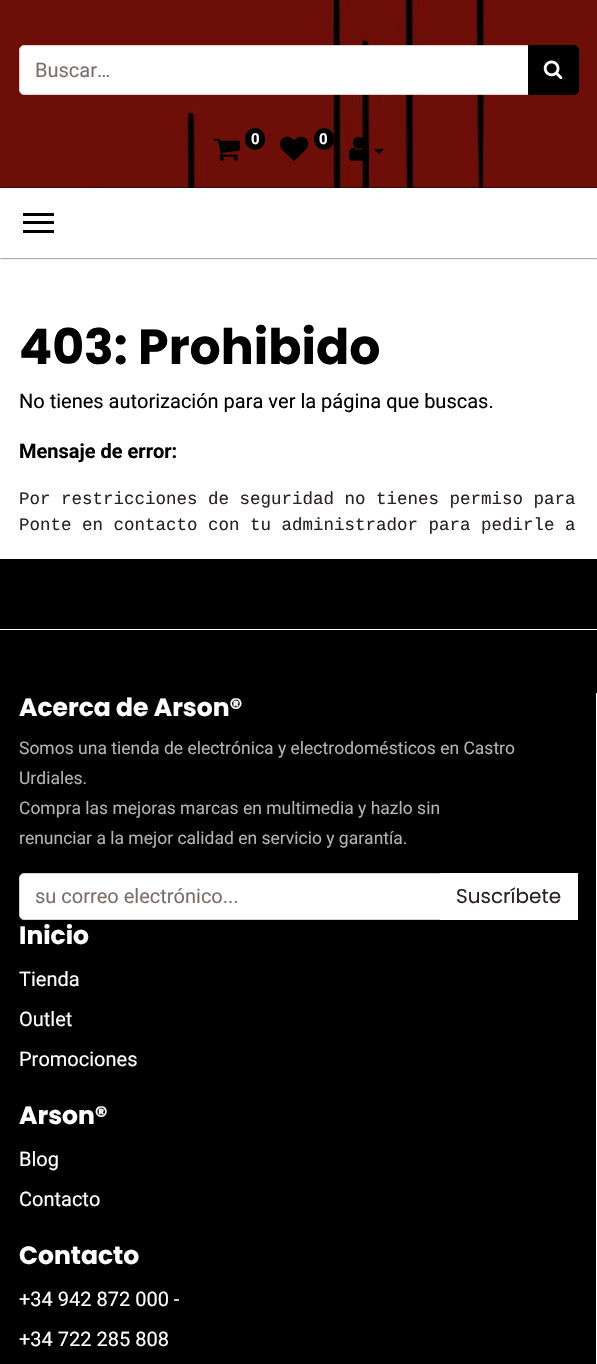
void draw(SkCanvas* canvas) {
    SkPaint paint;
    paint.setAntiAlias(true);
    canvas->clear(0xFFFFFFFF);
    canvas->drawImageRect(SkImages::DeferredFromEncodedData(SkData::MakeFromFileName("img1.png")), SkRect::MakeXYWH(0, 0, 597, 188), SkSamplingOptions());
    paint.setColor(0xFFFFFFFF);
    canvas->drawPath(SkPathBuilder().moveTo(24, 45.5f).lineTo(528.5f, 45.5f).lineTo(528.5f, 94.5f).lineTo(24, 94.5f).cubicTo(21.5f, 94.5f, 19.5f, 92.5f, 19.5f, 90).lineTo(19.5f, 50).cubicTo(19.5f, 47.5f, 21.5f, 45.5f, 24, 45.5f).close().detach(), paint);
    paint.setStyle(SkPaint::kStroke_Style);
    paint.setStrokeWidth(1);
    paint.setColor(0xFFDACFCE);
    canvas->drawPath(SkPathBuilder().moveTo(24, 45.5f).lineTo(528.5f, 45.5f).lineTo(528.5f, 94.5f).lineTo(24, 94.5f).cubicTo(21.5f, 94.5f, 19.5f, 92.5f, 19.5f, 90).lineTo(19.5f, 50).cubicTo(19.5f, 47.5f, 21.5f, 45.5f, 24, 45.5f).close().detach(), paint);
    SkFont font1(fontMgr->matchFamilyStyle("Roboto", SkFontStyle::Normal()), 20);
    font1.setSubpixel(true);
    paint.setStyle(SkPaint::kFill_Style);
    paint.setColor(0xFF7D6E6C);
    canvas->drawString("Buscar…", 35, 77, font1, paint);
    paint.setColor(0xFF000000);
    canvas->drawPath(SkPathBuilder().moveTo(528.5f, 45.5f).lineTo(574, 45.5f).cubicTo(576.5f, 45.5f, 578.5f, 47.5f, 578.5f, 50).lineTo(578.5f, 90).cubicTo(578.5f, 92.5f, 576.5f, 94.5f, 574, 94.5f).lineTo(528.5f, 94.5f).close().detach(), paint);
    paint.setStyle(SkPaint::kStroke_Style);
    canvas->drawPath(SkPathBuilder().moveTo(528.5f, 45.5f).lineTo(574, 45.5f).cubicTo(576.5f, 45.5f, 578.5f, 47.5f, 578.5f, 50).lineTo(578.5f, 90).cubicTo(578.5f, 92.5f, 576.5f, 94.5f, 574, 94.5f).lineTo(528.5f, 94.5f).close().detach(), paint);
    canvas->drawImageRect(SkImages::DeferredFromEncodedData(SkData::MakeFromFileName("img2.png")), SkRect::MakeXYWH(543, 60, 20, 20), SkSamplingOptions());
    canvas->drawImageRect(SkImages::DeferredFromEncodedData(SkData::MakeFromFileName("img3.png")), SkRect::MakeXYWH(213, 138, 27, 23), SkSamplingOptions());
    paint.setStyle(SkPaint::kFill_Style);
    canvas->drawRoundRect(SkRect::MakeXYWH(245, 128, 20, 22), 10, 10, paint);
    SkFont font2(fontMgr->matchFamilyStyle("Roboto", SkFontStyle::Bold()), 15);
    font2.setSubpixel(true);
    paint.setColor(0xFFFFFFFF);
    canvas->drawString("0", 251, 144, font2, paint);
    canvas->drawImageRect(SkImages::DeferredFromEncodedData(SkData::MakeFromFileName("img4.png")), SkRect::MakeXYWH(280, 136, 28, 25), SkSamplingOptions());
    paint.setColor(0xFF000000);
    canvas->drawRoundRect(SkRect::MakeXYWH(314, 128, 20, 22), 10, 10, paint);
    paint.setColor(0xFFFFFFFF);
    canvas->drawString("0", 319, 144, font2, paint);
    canvas->drawImageRect(SkImages::DeferredFromEncodedData(SkData::MakeFromFileName("img5.png")), SkRect::MakeXYWH(348, 136, 21, 25), SkSamplingOptions());
    paint.setColor(0xFF000000);
    canvas->drawPath(SkPathBuilder().moveTo(374, 149).lineTo(384, 149).lineTo(379, 154).close().detach(), paint);
    paint.setMaskFilter(SkMaskFilter::MakeBlur(kNormal_SkBlurStyle, 1));
    canvas->drawRect(SkRect::MakeXYWH(0, 188, 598, 70), paint);
    paint.setMaskFilter(nullptr);
    paint.setColor(0xFFFFFFFF);
    canvas->drawRect(SkRect::MakeXYWH(0, 188, 597, 70), paint);
    paint.setColor(0xFF000000);
    canvas->drawRect(SkRect::MakeXYWH(23, 213, 31, 3), paint);
    canvas->drawRect(SkRect::MakeXYWH(23, 221, 31, 3), paint);
    canvas->drawRect(SkRect::MakeXYWH(23, 230, 31, 3), paint);
    SkFont font3(fontMgr->matchFamilyStyle("Poppins", SkFontStyle::Bold()), 49);
    font3.setSubpixel(true);
    canvas->drawString("403: Prohibido", 19, 364, font3, paint);
    canvas->drawString("No tienes autorización para ver la página que buscas.", 19, 408, font1, paint);
    SkFont font4(fontMgr->matchFamilyStyle("Roboto", SkFontStyle::Bold()), 20);
    font4.setSubpixel(true);
    canvas->drawString("Mensaje de error:", 19, 458, font4, paint);
    SkFont font5(fontMgr->matchFamilyStyle("Liberation Mono", SkFontStyle::Normal()), 17.5f);
    font5.setSubpixel(true);
    paint.setColor(0xFF292221);
    canvas->drawString("Por restricciones de seguridad no tienes permiso para", 19, 504, font5, paint);
    canvas->drawString("Ponte en contacto con tu administrador para pedirle a", 19, 530, font5, paint);
    paint.setColor(0xFF000000);
    canvas->drawRect(SkRect::MakeXYWH(0, 559, 597, 805), paint);
    paint.setColor(0xFFFFFFFF);
    canvas->drawRect(SkRect::MakeXYWH(0, 629, 597, 1), paint);
    canvas->drawRect(SkRect::MakeXYWH(596, 693, 1, 671), paint);
    SkFont font6(fontMgr->matchFamilyStyle("Poppins", SkFontStyle::Bold()), 25);
    font6.setSubpixel(true);
    canvas->drawString("Acerca de Arson®", 19, 716, font6, paint);
    SkFont font7(fontMgr->matchFamilyStyle("Roboto", SkFontStyle::Normal()), 17.5f);
    font7.setSubpixel(true);
    paint.setColor(0xFFB3B3B3);
    canvas->drawString("Somos una tienda de electrónica y electrodomésticos en Castro", 19, 754, font7, paint);
    canvas->drawString("Urdiales.", 19, 784, font7, paint);
    canvas->drawString("Compra las mejoras marcas en multimedia y hazlo sin", 19, 814, font7, paint);
    canvas->drawString("renunciar a la mejor calidad en servicio y garantía.", 19, 844, font7, paint);
    paint.setColor(0xFFFFFFFF);
    canvas->drawPath(SkPathBuilder().moveTo(24, 873.5f).lineTo(440.5f, 873.5f).lineTo(440.5f, 919.5f).lineTo(24, 919.5f).cubicTo(21.5f, 919.5f, 19.5f, 917.5f, 19.5f, 915).lineTo(19.5f, 878).cubicTo(19.5f, 875.5f, 21.5f, 873.5f, 24, 873.5f).close().detach(), paint);
    paint.setStyle(SkPaint::kStroke_Style);
    paint.setColor(0xFFDACFCE);
    canvas->drawPath(SkPathBuilder().moveTo(24, 873.5f).lineTo(440.5f, 873.5f).lineTo(440.5f, 919.5f).lineTo(24, 919.5f).cubicTo(21.5f, 919.5f, 19.5f, 917.5f, 19.5f, 915).lineTo(19.5f, 878).cubicTo(19.5f, 875.5f, 21.5f, 873.5f, 24, 873.5f).close().detach(), paint);
    paint.setStyle(SkPaint::kFill_Style);
    paint.setColor(0xFF7D6E6C);
    canvas->drawString("su correo electrónico...", 35, 903, font1, paint);
    paint.setColor(0xFFFFFFFF);
    canvas->drawRect(SkRect::MakeXYWH(440, 873, 138, 47), paint);
    SkFont font8(fontMgr->matchFamilyStyle("Poppins", SkFontStyle::Normal()), 20);
    font8.setSubpixel(true);
    paint.setColor(0xFF292221);
    canvas->drawString("Suscríbete", 456, 903, font8, paint);
    paint.setColor(0xFFFFFFFF);
    canvas->drawString("Inicio", 19, 944, font6, paint);
    canvas->drawString("Tienda", 19, 986, font1, paint);
    canvas->drawString("Outlet", 19, 1026, font1, paint);
    canvas->drawString("Promociones", 19, 1066, font1, paint);
    canvas->drawString("Arson®", 19, 1124, font6, paint);
    canvas->drawString("Blog", 19, 1166, font1, paint);
    canvas->drawString("Contacto", 19, 1206, font1, paint);
    canvas->drawString("Contacto", 19, 1264, font6, paint);
    canvas->drawString("+34 942 872 000 -", 19, 1306, font1, paint);
    canvas->drawString("+34 722 285 808", 19, 1346, font1, paint);
}
